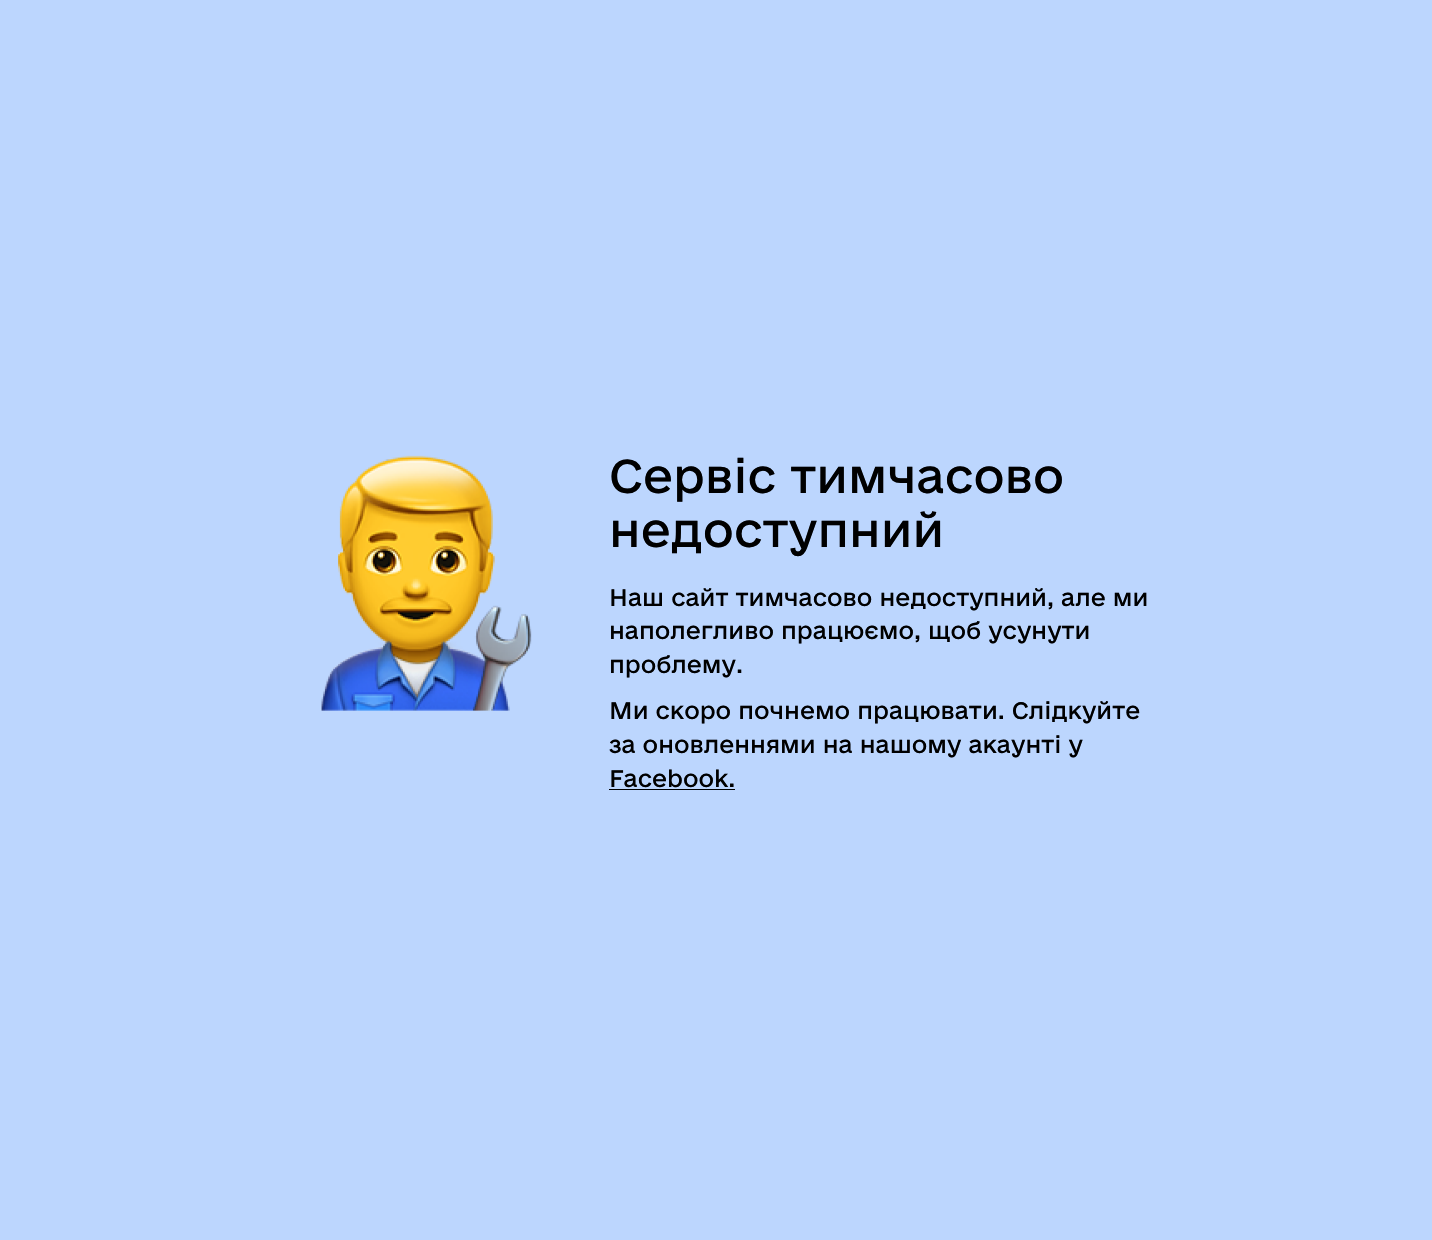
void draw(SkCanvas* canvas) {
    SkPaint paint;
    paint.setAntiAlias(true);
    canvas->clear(0xFFBCD6FE);
    canvas->drawImageRect(SkImages::DeferredFromEncodedData(SkData::MakeFromFileName("img1.png")), SkRect::MakeXYWH(320, 455, 212, 256), SkSamplingOptions());
    SkFont font1(fontMgr->matchFamilyStyle("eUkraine", SkFontStyle::Normal()), 45);
    font1.setSubpixel(true);
    paint.setColor(0xFF000000);
    canvas->drawString("Сервіс тимчасово", 609, 493, font1, paint);
    canvas->drawString("недоступний", 609, 547, font1, paint);
    SkFont font2(fontMgr->matchFamilyStyle("eUkraine", SkFontStyle::Normal()), 22.5f);
    font2.setSubpixel(true);
    canvas->drawString("Наш сайт тимчасово недоступний, але ми", 609, 606, font2, paint);
    canvas->drawString("наполегливо працюємо, щоб усунути", 609, 639, font2, paint);
    canvas->drawString("проблему.", 609, 673, font2, paint);
    canvas->drawString("Ми скоро почнемо працювати. Слідкуйте", 609, 719, font2, paint);
    canvas->drawString("за оновленнями на нашому акаунті у", 609, 753, font2, paint);
    canvas->drawString("Facebook.", 609, 787, font2, paint);
    canvas->drawRect(SkRect::MakeXYWH(609, 789, 126, 1), paint);
}
